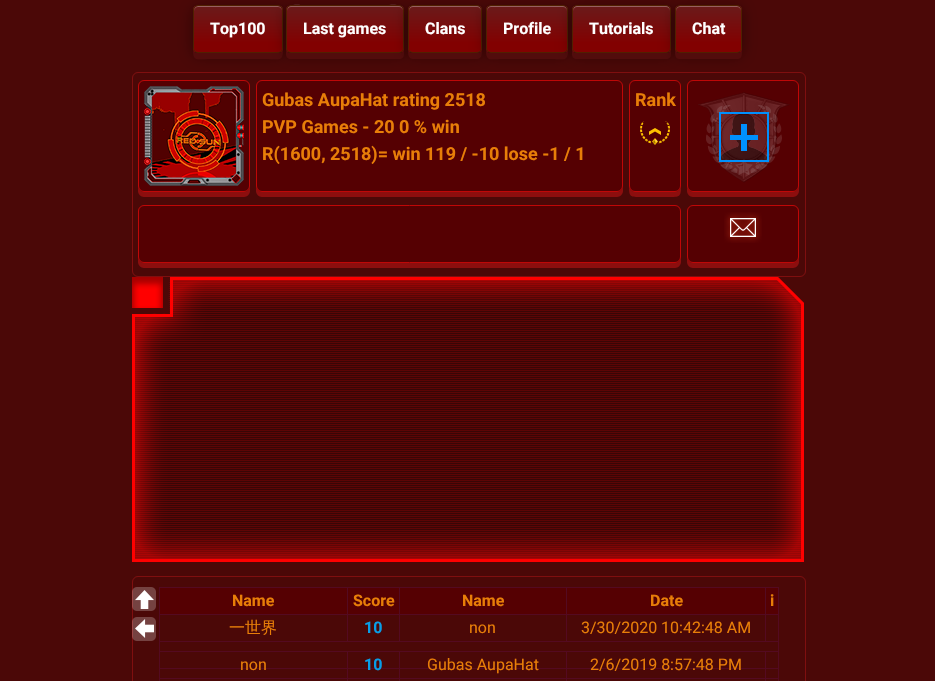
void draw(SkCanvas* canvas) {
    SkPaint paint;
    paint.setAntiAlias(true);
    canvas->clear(0xFF4B0807);
    paint.setColor(0x66000000);
    paint.setMaskFilter(SkMaskFilter::MakeBlur(kNormal_SkBlurStyle, 7.5f));
    canvas->drawRoundRect(SkRect::MakeXYWH(193, 8, 90, 48), 5, 5, paint);
    paint.setMaskFilter(nullptr);
    paint.setColor(0xFF520C0C);
    canvas->drawPath(SkPathBuilder().moveTo(193, 48).cubicTo(193, 62, 195, 59, 211, 59).lineTo(265, 59).cubicTo(281, 59, 283, 62, 283, 48).cubicTo(283, 51, 281, 53, 278, 53).lineTo(198, 53).cubicTo(195, 53, 193, 51, 193, 48).close().detach(), paint);
    canvas->save();
    canvas->clipPath(SkPathBuilder().moveTo(198, 5).lineTo(278, 5).cubicTo(281, 5, 283, 7, 283, 10).lineTo(283, 48).cubicTo(283, 51, 281, 53, 278, 53).lineTo(198, 53).cubicTo(195, 53, 193, 51, 193, 48).lineTo(193, 10).cubicTo(193, 7, 195, 5, 198, 5).close().detach(), true);
    {
        const SkColor colors[] = {0xFF6A1A1A, 0xFF820101};
        const float stops[] = {0, 0.8f};
        const SkPoint ends[] = {{238, 6}, {238, 52}};
        paint.setShader(SkGradientShader::MakeLinear(ends, colors, stops, 2, SkTileMode::kClamp));
        paint.setAlpha(255);
    }
    canvas->drawRect(SkRect::MakeXYWH(193, 6, 90, 46), paint);
    canvas->restore();
    paint.setShader(nullptr);
    paint.setColor(0x4DFFFFFF);
    canvas->drawPath(SkPathBuilder().moveTo(198, 7).lineTo(278, 7).cubicTo(280, 7, 282, 9, 282, 11).cubicTo(282, 3, 269, 6, 265, 6).lineTo(211, 6).cubicTo(207, 6, 194, 3, 194, 11).cubicTo(194, 9, 196, 7, 198, 7).close().detach(), paint);
    paint.setStyle(SkPaint::kStroke_Style);
    paint.setStrokeWidth(1);
    paint.setColor(0xFF502000);
    canvas->drawRoundRect(SkRect::MakeXYWH(193.5f, 5.5f, 89, 47), 4.5f, 4.5f, paint);
    SkFont font1(fontMgr->matchFamilyStyle("Roboto", SkFontStyle::Bold()), 16);
    font1.setSubpixel(true);
    paint.setStyle(SkPaint::kFill_Style);
    paint.setColor(0xFFFFFFFF);
    canvas->drawString("Top100", 210, 34, font1, paint);
    paint.setColor(0x66000000);
    paint.setMaskFilter(SkMaskFilter::MakeBlur(kNormal_SkBlurStyle, 7.5f));
    canvas->drawRoundRect(SkRect::MakeXYWH(286, 8, 118, 48), 5, 5, paint);
    paint.setMaskFilter(nullptr);
    paint.setColor(0xFF520C0C);
    canvas->drawPath(SkPathBuilder().moveTo(286, 48).lineTo(286, 54).cubicTo(286, 57, 288, 59, 291, 59).lineTo(399, 59).cubicTo(402, 59, 404, 57, 404, 54).lineTo(404, 48).cubicTo(404, 51, 402, 53, 399, 53).lineTo(291, 53).cubicTo(288, 53, 286, 51, 286, 48).close().detach(), paint);
    canvas->save();
    canvas->clipPath(SkPathBuilder().moveTo(291, 5).lineTo(399, 5).cubicTo(402, 5, 404, 7, 404, 10).lineTo(404, 48).cubicTo(404, 51, 402, 53, 399, 53).lineTo(291, 53).cubicTo(288, 53, 286, 51, 286, 48).lineTo(286, 10).cubicTo(286, 7, 288, 5, 291, 5).close().detach(), true);
    {
        const SkColor colors[] = {0xFF6A1A1A, 0xFF820101};
        const float stops[] = {0, 0.8f};
        const SkPoint ends[] = {{345, 6}, {345, 52}};
        paint.setShader(SkGradientShader::MakeLinear(ends, colors, stops, 2, SkTileMode::kClamp));
        paint.setAlpha(255);
    }
    canvas->drawRect(SkRect::MakeXYWH(286, 6, 118, 46), paint);
    canvas->restore();
    paint.setShader(nullptr);
    paint.setColor(0x4DFFFFFF);
    canvas->drawPath(SkPathBuilder().moveTo(291, 7).lineTo(399, 7).cubicTo(401, 7, 403, 9, 403, 11).cubicTo(403, 1, 384, 6, 381, 6).lineTo(309, 6).cubicTo(306, 6, 287, 1, 287, 11).cubicTo(287, 9, 289, 7, 291, 7).close().detach(), paint);
    paint.setStyle(SkPaint::kStroke_Style);
    paint.setColor(0xFF502000);
    canvas->drawRoundRect(SkRect::MakeXYWH(286.5f, 5.5f, 117, 47), 4.5f, 4.5f, paint);
    paint.setStyle(SkPaint::kFill_Style);
    paint.setColor(0xFFFFFFFF);
    canvas->drawString("Last games", 303, 34, font1, paint);
    paint.setColor(0x66000000);
    paint.setMaskFilter(SkMaskFilter::MakeBlur(kNormal_SkBlurStyle, 7.5f));
    canvas->drawRoundRect(SkRect::MakeXYWH(408, 8, 74, 48), 5, 5, paint);
    paint.setMaskFilter(nullptr);
    paint.setColor(0xFF520C0C);
    canvas->drawPath(SkPathBuilder().moveTo(408, 48).cubicTo(408, 61, 410, 59, 424, 59).lineTo(466, 59).cubicTo(480, 59, 482, 61, 482, 48).cubicTo(482, 51, 480, 53, 477, 53).lineTo(413, 53).cubicTo(410, 53, 408, 51, 408, 48).close().detach(), paint);
    canvas->save();
    canvas->clipPath(SkPathBuilder().moveTo(413, 5).lineTo(477, 5).cubicTo(480, 5, 482, 7, 482, 10).lineTo(482, 48).cubicTo(482, 51, 480, 53, 477, 53).lineTo(413, 53).cubicTo(410, 53, 408, 51, 408, 48).lineTo(408, 10).cubicTo(408, 7, 410, 5, 413, 5).close().detach(), true);
    {
        const SkColor colors[] = {0xFF6A1A1A, 0xFF820101};
        const float stops[] = {0, 0.8f};
        const SkPoint ends[] = {{445, 6}, {445, 52}};
        paint.setShader(SkGradientShader::MakeLinear(ends, colors, stops, 2, SkTileMode::kClamp));
        paint.setAlpha(255);
    }
    canvas->drawRect(SkRect::MakeXYWH(408, 6, 74, 46), paint);
    canvas->restore();
    paint.setShader(nullptr);
    paint.setColor(0x4DFFFFFF);
    canvas->drawPath(SkPathBuilder().moveTo(413, 7).lineTo(477, 7).cubicTo(479, 7, 481, 9, 481, 11).cubicTo(481, 3, 471, 6, 466, 6).lineTo(424, 6).cubicTo(419, 6, 409, 3, 409, 11).cubicTo(409, 9, 411, 7, 413, 7).close().detach(), paint);
    paint.setStyle(SkPaint::kStroke_Style);
    paint.setColor(0xFF502000);
    canvas->drawRoundRect(SkRect::MakeXYWH(408.5f, 5.5f, 73, 47), 4.5f, 4.5f, paint);
    paint.setStyle(SkPaint::kFill_Style);
    paint.setColor(0xFFFFFFFF);
    canvas->drawString("Clans", 425, 34, font1, paint);
    paint.setColor(0x66000000);
    paint.setMaskFilter(SkMaskFilter::MakeBlur(kNormal_SkBlurStyle, 7.5f));
    canvas->drawRoundRect(SkRect::MakeXYWH(486, 8, 82, 48), 5, 5, paint);
    paint.setMaskFilter(nullptr);
    paint.setColor(0xFF520C0C);
    canvas->drawPath(SkPathBuilder().moveTo(486, 48).cubicTo(486, 62, 488, 59, 503, 59).lineTo(551, 59).cubicTo(566, 59, 568, 62, 568, 48).cubicTo(568, 51, 566, 53, 563, 53).lineTo(491, 53).cubicTo(488, 53, 486, 51, 486, 48).close().detach(), paint);
    canvas->save();
    canvas->clipPath(SkPathBuilder().moveTo(491, 5).lineTo(563, 5).cubicTo(566, 5, 568, 7, 568, 10).lineTo(568, 48).cubicTo(568, 51, 566, 53, 563, 53).lineTo(491, 53).cubicTo(488, 53, 486, 51, 486, 48).lineTo(486, 10).cubicTo(486, 7, 488, 5, 491, 5).close().detach(), true);
    {
        const SkColor colors[] = {0xFF6A1A1A, 0xFF820101};
        const float stops[] = {0, 0.8f};
        const SkPoint ends[] = {{527, 6}, {527, 52}};
        paint.setShader(SkGradientShader::MakeLinear(ends, colors, stops, 2, SkTileMode::kClamp));
        paint.setAlpha(255);
    }
    canvas->drawRect(SkRect::MakeXYWH(486, 6, 82, 46), paint);
    canvas->restore();
    paint.setShader(nullptr);
    paint.setColor(0x4DFFFFFF);
    canvas->drawPath(SkPathBuilder().moveTo(491, 7).lineTo(563, 7).cubicTo(565, 7, 567, 9, 567, 11).cubicTo(567, 3, 556, 6, 551, 6).lineTo(503, 6).cubicTo(498, 6, 487, 3, 487, 11).cubicTo(487, 9, 489, 7, 491, 7).close().detach(), paint);
    paint.setStyle(SkPaint::kStroke_Style);
    paint.setColor(0xFF502000);
    canvas->drawRoundRect(SkRect::MakeXYWH(486.5f, 5.5f, 81, 47), 4.5f, 4.5f, paint);
    paint.setStyle(SkPaint::kFill_Style);
    paint.setColor(0xFFFFFFFF);
    canvas->drawString("Profile", 503, 34, font1, paint);
    paint.setColor(0x66000000);
    paint.setMaskFilter(SkMaskFilter::MakeBlur(kNormal_SkBlurStyle, 7.5f));
    canvas->drawRoundRect(SkRect::MakeXYWH(572, 8, 99, 48), 5, 5, paint);
    paint.setMaskFilter(nullptr);
    paint.setColor(0xFF520C0C);
    canvas->drawPath(SkPathBuilder().moveTo(572, 48).lineTo(572, 54).cubicTo(572, 57, 574, 59, 577, 59).lineTo(666, 59).cubicTo(669, 59, 671, 57, 671, 54).lineTo(671, 48).cubicTo(671, 51, 669, 53, 666, 53).lineTo(577, 53).cubicTo(574, 53, 572, 51, 572, 48).close().detach(), paint);
    canvas->save();
    canvas->clipPath(SkPathBuilder().moveTo(577, 5).lineTo(666, 5).cubicTo(669, 5, 671, 7, 671, 10).lineTo(671, 48).cubicTo(671, 51, 669, 53, 666, 53).lineTo(577, 53).cubicTo(574, 53, 572, 51, 572, 48).lineTo(572, 10).cubicTo(572, 7, 574, 5, 577, 5).close().detach(), true);
    {
        const SkColor colors[] = {0xFF6A1A1A, 0xFF820101};
        const float stops[] = {0, 0.8f};
        const SkPoint ends[] = {{622, 6}, {622, 52}};
        paint.setShader(SkGradientShader::MakeLinear(ends, colors, stops, 2, SkTileMode::kClamp));
        paint.setAlpha(255);
    }
    canvas->drawRect(SkRect::MakeXYWH(572, 6, 99, 46), paint);
    canvas->restore();
    paint.setShader(nullptr);
    paint.setColor(0x4DFFFFFF);
    canvas->drawPath(SkPathBuilder().moveTo(577, 7).lineTo(666, 7).cubicTo(668, 7, 670, 9, 670, 11).cubicTo(670, 2, 656, 6, 651, 6).lineTo(592, 6).cubicTo(587, 6, 573, 2, 573, 11).cubicTo(573, 9, 575, 7, 577, 7).close().detach(), paint);
    paint.setStyle(SkPaint::kStroke_Style);
    paint.setColor(0xFF502000);
    canvas->drawRoundRect(SkRect::MakeXYWH(572.5f, 5.5f, 98, 47), 4.5f, 4.5f, paint);
    paint.setStyle(SkPaint::kFill_Style);
    paint.setColor(0xFFFFFFFF);
    canvas->drawString("Tutorials", 589, 34, font1, paint);
    paint.setColor(0x66000000);
    paint.setMaskFilter(SkMaskFilter::MakeBlur(kNormal_SkBlurStyle, 7.5f));
    canvas->drawRoundRect(SkRect::MakeXYWH(675, 8, 67, 48), 5, 5, paint);
    paint.setMaskFilter(nullptr);
    paint.setColor(0xFF520C0C);
    canvas->drawPath(SkPathBuilder().moveTo(675, 48).cubicTo(675, 61, 676, 59, 690, 59).lineTo(728, 59).cubicTo(741, 59, 742, 61, 742, 48).cubicTo(742, 51, 740, 53, 737, 53).lineTo(680, 53).cubicTo(677, 53, 675, 51, 675, 48).close().detach(), paint);
    canvas->save();
    canvas->clipPath(SkPathBuilder().moveTo(680, 5).lineTo(737, 5).cubicTo(740, 5, 742, 7, 742, 10).lineTo(742, 48).cubicTo(742, 51, 740, 53, 737, 53).lineTo(680, 53).cubicTo(677, 53, 675, 51, 675, 48).lineTo(675, 10).cubicTo(675, 7, 677, 5, 680, 5).close().detach(), true);
    {
        const SkColor colors[] = {0xFF6A1A1A, 0xFF820101};
        const float stops[] = {0, 0.8f};
        const SkPoint ends[] = {{709, 6}, {709, 52}};
        paint.setShader(SkGradientShader::MakeLinear(ends, colors, stops, 2, SkTileMode::kClamp));
        paint.setAlpha(255);
    }
    canvas->drawRect(SkRect::MakeXYWH(675, 6, 67, 46), paint);
    canvas->restore();
    paint.setShader(nullptr);
    paint.setColor(0xFF975F5F);
    canvas->drawPath(SkPathBuilder().moveTo(680, 7).lineTo(737, 7).cubicTo(739, 7, 741, 9, 741, 11).cubicTo(741, 4, 733, 6, 728, 6).lineTo(690, 6).cubicTo(684, 6, 676, 4, 676, 11).cubicTo(676, 9, 678, 7, 680, 7).close().detach(), paint);
    paint.setStyle(SkPaint::kStroke_Style);
    paint.setColor(0xFF502000);
    canvas->drawRoundRect(SkRect::MakeXYWH(675.5f, 5.5f, 66, 47), 4.5f, 4.5f, paint);
    paint.setStyle(SkPaint::kFill_Style);
    paint.setColor(0xFFFFFFFF);
    canvas->drawString("Chat", 692, 34, font1, paint);
    paint.setStyle(SkPaint::kStroke_Style);
    paint.setColor(0xFF7F0F0F);
    canvas->drawRoundRect(SkRect::MakeXYWH(132.5f, 72.5f, 673, 204), 5.5f, 5.5f, paint);
    paint.setStyle(SkPaint::kFill_Style);
    paint.setColor(0xFF8C0E0E);
    canvas->drawPath(SkPathBuilder().moveTo(138, 186).lineTo(138, 191).cubicTo(138, 194, 141, 197, 144, 197).lineTo(244, 197).cubicTo(247, 197, 250, 194, 250, 191).lineTo(250, 186).cubicTo(250, 189, 247, 192, 244, 192).lineTo(144, 192).cubicTo(141, 192, 138, 189, 138, 186).close().detach(), paint);
    paint.setColor(0xFF550002);
    canvas->drawRoundRect(SkRect::MakeXYWH(138.5f, 80.5f, 111, 111), 5.5f, 5.5f, paint);
    paint.setStyle(SkPaint::kStroke_Style);
    paint.setColor(0xFFBF0707);
    canvas->drawRoundRect(SkRect::MakeXYWH(138.5f, 80.5f, 111, 111), 5.5f, 5.5f, paint);
    canvas->drawImageRect(SkImages::DeferredFromEncodedData(SkData::MakeFromFileName("img1.png")), SkRect::MakeXYWH(144, 86, 100, 100), SkSamplingOptions());
    paint.setStyle(SkPaint::kFill_Style);
    paint.setColor(0xFF8C0E0E);
    canvas->drawPath(SkPathBuilder().moveTo(256, 186).lineTo(256, 191).cubicTo(256, 194, 259, 197, 262, 197).lineTo(617, 197).cubicTo(620, 197, 623, 194, 623, 191).lineTo(623, 186).cubicTo(623, 189, 620, 192, 617, 192).lineTo(262, 192).cubicTo(259, 192, 256, 189, 256, 186).close().detach(), paint);
    paint.setColor(0xFF550002);
    canvas->drawRoundRect(SkRect::MakeXYWH(256.5f, 80.5f, 366, 111), 5.5f, 5.5f, paint);
    paint.setStyle(SkPaint::kStroke_Style);
    paint.setColor(0xFFBF0707);
    canvas->drawRoundRect(SkRect::MakeXYWH(256.5f, 80.5f, 366, 111), 5.5f, 5.5f, paint);
    SkFont font2(fontMgr->matchFamilyStyle("Roboto", SkFontStyle::Bold()), 18);
    font2.setSubpixel(true);
    paint.setStyle(SkPaint::kFill_Style);
    paint.setColor(0xFFE87E08);
    canvas->drawString("Gubas AupaHat rating 2518", 262, 106, font2, paint);
    canvas->drawString("PVP Games - 20 0 % win", 262, 133, font2, paint);
    canvas->drawString("R(1600, 2518)= win 119 / -10 lose -1 / 1", 262, 160, font2, paint);
    paint.setColor(0xFF8C0E0E);
    canvas->drawPath(SkPathBuilder().moveTo(629, 186).cubicTo(629, 197, 630, 197, 642, 197).lineTo(668, 197).cubicTo(680, 197, 681, 197, 681, 186).cubicTo(681, 189, 678, 192, 675, 192).lineTo(635, 192).cubicTo(632, 192, 629, 189, 629, 186).close().detach(), paint);
    paint.setColor(0xFF550002);
    canvas->drawRoundRect(SkRect::MakeXYWH(629.5f, 80.5f, 51, 111), 5.5f, 5.5f, paint);
    paint.setStyle(SkPaint::kStroke_Style);
    paint.setColor(0xFFBF0707);
    canvas->drawRoundRect(SkRect::MakeXYWH(629.5f, 80.5f, 51, 111), 5.5f, 5.5f, paint);
    paint.setStyle(SkPaint::kFill_Style);
    paint.setColor(0xFFE87E08);
    canvas->drawString("Rank", 635, 106, font2, paint);
    canvas->drawImageRect(SkImages::DeferredFromEncodedData(SkData::MakeFromFileName("img2.png")), SkRect::MakeXYWH(640, 121, 30, 24), SkSamplingOptions());
    paint.setColor(0xFF8C0E0E);
    canvas->drawPath(SkPathBuilder().moveTo(687, 186).lineTo(687, 191).cubicTo(687, 194, 690, 197, 693, 197).lineTo(793, 197).cubicTo(796, 197, 799, 194, 799, 191).lineTo(799, 186).cubicTo(799, 189, 796, 192, 793, 192).lineTo(693, 192).cubicTo(690, 192, 687, 189, 687, 186).close().detach(), paint);
    paint.setColor(0xFF550002);
    canvas->drawRoundRect(SkRect::MakeXYWH(687.5f, 80.5f, 111, 111), 5.5f, 5.5f, paint);
    paint.setStyle(SkPaint::kStroke_Style);
    paint.setColor(0xFFBF0707);
    canvas->drawRoundRect(SkRect::MakeXYWH(687.5f, 80.5f, 111, 111), 5.5f, 5.5f, paint);
    canvas->drawImageRect(SkImages::DeferredFromEncodedData(SkData::MakeFromFileName("img3.png")), SkRect::MakeXYWH(698, 92, 92, 91), SkSamplingOptions());
    paint.setStyle(SkPaint::kFill_Style);
    paint.setColor(0xFF8C0E0E);
    canvas->drawPath(SkPathBuilder().moveTo(138, 257).lineTo(138, 262).cubicTo(138, 265, 141, 268, 144, 268).lineTo(675, 268).cubicTo(678, 268, 681, 265, 681, 262).lineTo(681, 257).cubicTo(681, 260, 678, 263, 675, 263).lineTo(144, 263).cubicTo(141, 263, 138, 260, 138, 257).close().detach(), paint);
    paint.setColor(0xFF550002);
    canvas->drawRoundRect(SkRect::MakeXYWH(138.5f, 205.5f, 542, 57), 5.5f, 5.5f, paint);
    paint.setStyle(SkPaint::kStroke_Style);
    paint.setColor(0xFFBF0707);
    canvas->drawRoundRect(SkRect::MakeXYWH(138.5f, 205.5f, 542, 57), 5.5f, 5.5f, paint);
    paint.setStyle(SkPaint::kFill_Style);
    paint.setColor(0xFF8C0E0E);
    canvas->drawPath(SkPathBuilder().moveTo(687, 257).lineTo(687, 262).cubicTo(687, 265, 690, 268, 693, 268).lineTo(793, 268).cubicTo(796, 268, 799, 265, 799, 262).lineTo(799, 257).cubicTo(799, 260, 796, 263, 793, 263).lineTo(693, 263).cubicTo(690, 263, 687, 260, 687, 257).close().detach(), paint);
    paint.setColor(0xFF550002);
    canvas->drawRoundRect(SkRect::MakeXYWH(687.5f, 205.5f, 111, 57), 5.5f, 5.5f, paint);
    paint.setStyle(SkPaint::kStroke_Style);
    paint.setColor(0xFFBF0707);
    canvas->drawRoundRect(SkRect::MakeXYWH(687.5f, 205.5f, 111, 57), 5.5f, 5.5f, paint);
    canvas->drawImageRect(SkImages::DeferredFromEncodedData(SkData::MakeFromFileName("img4.png")), SkRect::MakeXYWH(724, 212, 38, 31), SkSamplingOptions());
    canvas->drawImageRect(SkImages::DeferredFromEncodedData(SkData::MakeFromFileName("img5.png")), SkRect::MakeXYWH(132, 277, 672, 285), SkSamplingOptions());
    paint.setColor(0xFF7F0F0F);
    canvas->drawRoundRect(SkRect::MakeXYWH(132.5f, 576.5f, 673, 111), 5.5f, 5.5f, paint);
    canvas->drawImageRect(SkImages::DeferredFromEncodedData(SkData::MakeFromFileName("img6.png")), SkRect::MakeXYWH(132, 587, 24, 24), SkSamplingOptions());
    paint.setStyle(SkPaint::kFill_Style);
    paint.setColor(0xFF540A21);
    canvas->drawRect(SkRect::MakeXYWH(159, 587, 620, 1), paint);
    canvas->drawRect(SkRect::MakeXYWH(778, 587, 1, 94), paint);
    canvas->drawRect(SkRect::MakeXYWH(159, 587, 1, 94), paint);
    paint.setColor(0xFF550002);
    canvas->drawRect(SkRect::MakeXYWH(160, 588, 187, 26), paint);
    paint.setColor(0xFFE87E08);
    canvas->drawString("Name", 232, 606, font1, paint);
    paint.setColor(0xFF550002);
    canvas->drawRect(SkRect::MakeXYWH(348, 588, 51, 26), paint);
    paint.setColor(0xFF540A21);
    canvas->drawRect(SkRect::MakeXYWH(765, 614, 14, 1), paint);
    canvas->drawRect(SkRect::MakeXYWH(765, 641, 14, 1), paint);
    canvas->drawRect(SkRect::MakeXYWH(765, 614, 1, 28), paint);
    canvas->drawRect(SkRect::MakeXYWH(566, 614, 200, 1), paint);
    canvas->drawRect(SkRect::MakeXYWH(566, 641, 200, 1), paint);
    canvas->drawRect(SkRect::MakeXYWH(566, 614, 1, 28), paint);
    canvas->drawRect(SkRect::MakeXYWH(399, 614, 168, 1), paint);
    canvas->drawRect(SkRect::MakeXYWH(399, 641, 168, 1), paint);
    canvas->drawRect(SkRect::MakeXYWH(399, 614, 1, 28), paint);
    canvas->drawRect(SkRect::MakeXYWH(347, 614, 53, 1), paint);
    canvas->drawRect(SkRect::MakeXYWH(347, 641, 53, 1), paint);
    canvas->drawRect(SkRect::MakeXYWH(347, 614, 1, 28), paint);
    canvas->drawRect(SkRect::MakeXYWH(159, 614, 189, 1), paint);
    canvas->drawRect(SkRect::MakeXYWH(347, 587, 1, 28), paint);
    paint.setColor(0xFFE87E08);
    canvas->drawString("Score", 353, 606, font1, paint);
    paint.setColor(0xFF550002);
    canvas->drawRect(SkRect::MakeXYWH(400, 588, 166, 26), paint);
    paint.setColor(0xFF540A21);
    canvas->drawRect(SkRect::MakeXYWH(399, 587, 1, 28), paint);
    paint.setColor(0xFFE87E08);
    canvas->drawString("Name", 462, 606, font1, paint);
    paint.setColor(0xFF550002);
    canvas->drawRect(SkRect::MakeXYWH(567, 588, 198, 26), paint);
    paint.setColor(0xFF540A21);
    canvas->drawRect(SkRect::MakeXYWH(566, 587, 1, 28), paint);
    paint.setColor(0xFFE87E08);
    canvas->drawString("Date", 650, 606, font1, paint);
    paint.setColor(0xFF550002);
    canvas->drawRect(SkRect::MakeXYWH(766, 588, 12, 26), paint);
    paint.setColor(0xFF540A21);
    canvas->drawRect(SkRect::MakeXYWH(765, 587, 1, 28), paint);
    paint.setColor(0xFFE87E08);
    canvas->drawString("i", 770, 606, font1, paint);
    paint.setColor(0xFF540A21);
    canvas->drawRect(SkRect::MakeXYWH(159, 641, 189, 1), paint);
    SkFont font3(fontMgr->matchFamilyStyle("WenQuanYi Zen Hei", SkFontStyle(500, SkFontStyle::kNormal_Width, SkFontStyle::kUpright_Slant)), 16);
    font3.setSubpixel(true);
    paint.setColor(0xFFE87E08);
    canvas->drawString("一世界", 229, 633, font3, paint);
    paint.setColor(0xFF089EE8);
    canvas->drawString("10", 364, 633, font1, paint);
    SkFont font4(fontMgr->matchFamilyStyle("Roboto", SkFontStyle::Normal()), 16);
    font4.setSubpixel(true);
    paint.setColor(0xFFE87E08);
    canvas->drawString("non", 469, 633, font4, paint);
    canvas->drawString("3/30/2020 10:42:48 AM", 581, 633, font4, paint);
    paint.setColor(0xFF540A21);
    canvas->drawRect(SkRect::MakeXYWH(159, 668, 620, 1), paint);
    canvas->drawRect(SkRect::MakeXYWH(159, 651, 620, 1), paint);
    canvas->drawRect(SkRect::MakeXYWH(159, 678, 620, 1), paint);
    canvas->drawRect(SkRect::MakeXYWH(765, 651, 1, 30), paint);
    canvas->drawRect(SkRect::MakeXYWH(347, 651, 1, 30), paint);
    canvas->drawRect(SkRect::MakeXYWH(399, 651, 1, 30), paint);
    canvas->drawRect(SkRect::MakeXYWH(566, 651, 1, 30), paint);
    paint.setColor(0xFFE87E08);
    canvas->drawString("non", 240, 670, font4, paint);
    paint.setColor(0xFF089EE8);
    canvas->drawString("10", 364, 670, font1, paint);
    paint.setColor(0xFFE87E08);
    canvas->drawString("Gubas AupaHat", 427, 670, font4, paint);
    canvas->drawString("2/6/2019 8:57:48 PM", 590, 670, font4, paint);
    canvas->drawImageRect(SkImages::DeferredFromEncodedData(SkData::MakeFromFileName("img7.png")), SkRect::MakeXYWH(132, 617, 24, 24), SkSamplingOptions());
}
